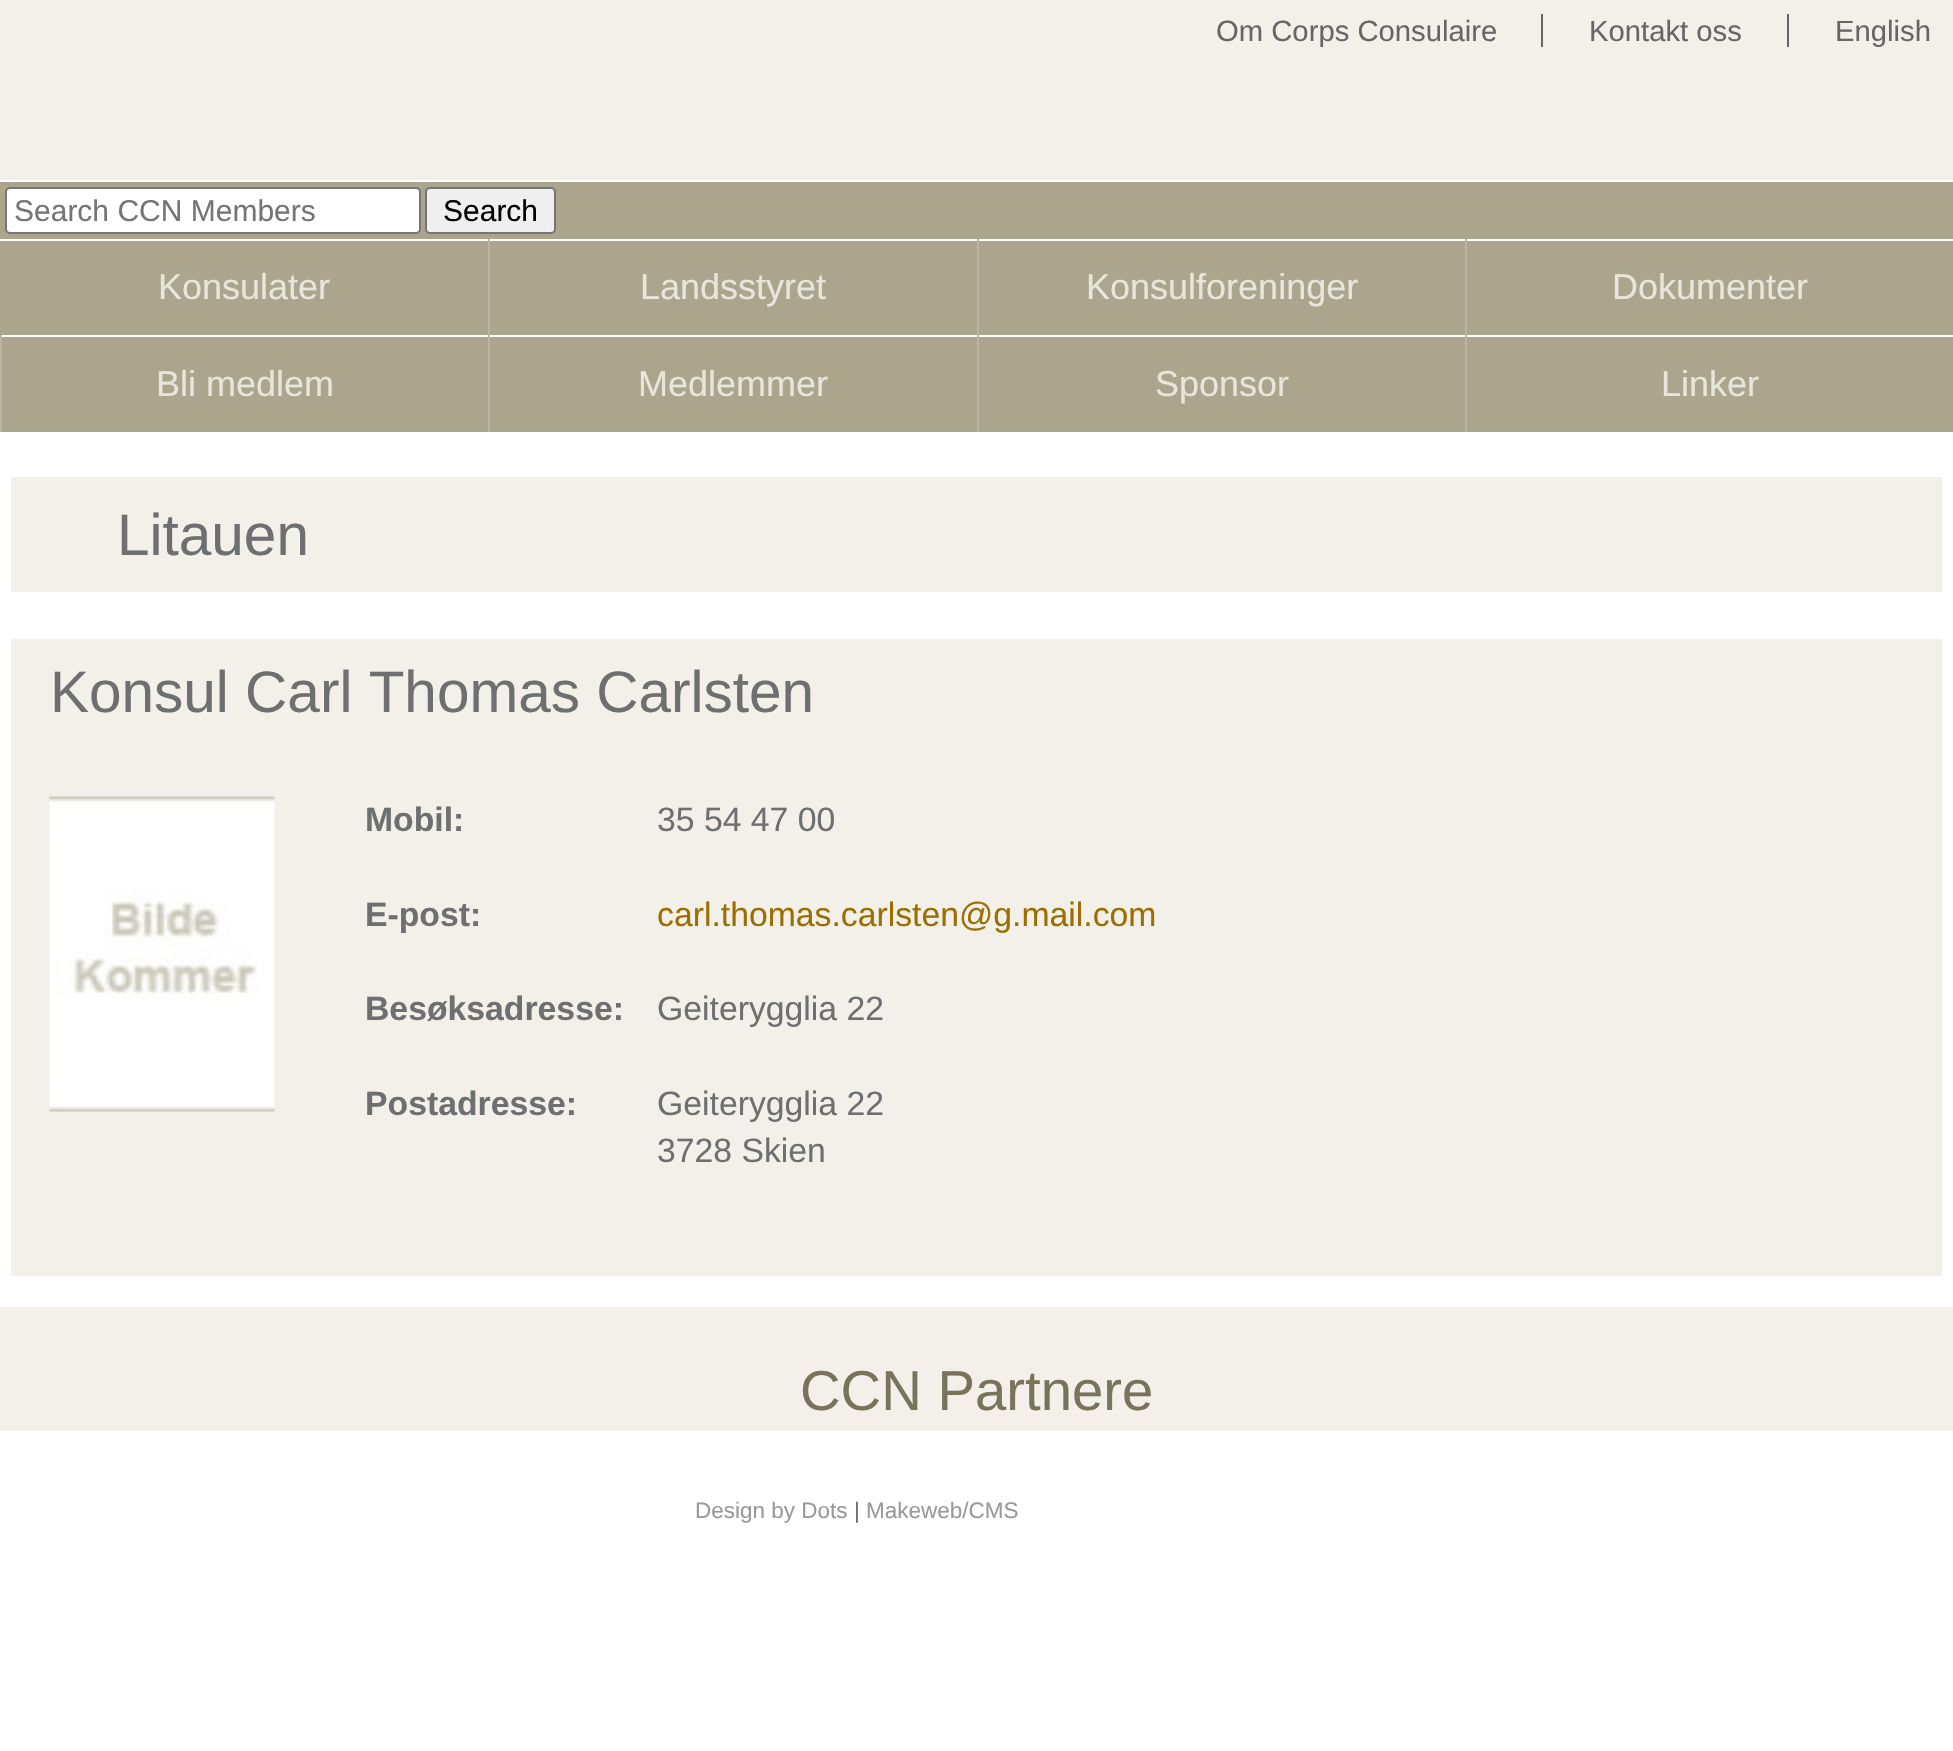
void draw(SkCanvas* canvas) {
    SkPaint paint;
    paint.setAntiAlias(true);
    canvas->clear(0xFFFFFFFF);
    paint.setColor(0xFFF2F0E9);
    canvas->drawRect(SkRect::MakeXYWH(0, 0, 1953, 180), paint);
    paint.setColor(0xFFABA58E);
    canvas->drawRect(SkRect::MakeXYWH(0, 182, 1953, 250), paint);
    SkFont font1(fontMgr->matchFamilyStyle("Liberation Sans", SkFontStyle::Normal()), 29.25f);
    font1.setSubpixel(true);
    paint.setColor(0xFF666666);
    canvas->drawString("Om Corps Consulaire", 1216, 41, font1, paint);
    canvas->drawRect(SkRect::MakeXYWH(1541, 14, 2, 33), paint);
    canvas->drawString("Kontakt oss", 1589, 41, font1, paint);
    canvas->drawRect(SkRect::MakeXYWH(1787, 14, 2, 33), paint);
    canvas->drawString("English", 1835, 41, font1, paint);
    paint.setColor(0xFFFFFFFF);
    canvas->drawRoundRect(SkRect::MakeXYWH(6, 188, 414, 45), 4, 4, paint);
    paint.setStyle(SkPaint::kStroke_Style);
    paint.setStrokeWidth(2);
    paint.setColor(0xFF767676);
    canvas->drawRoundRect(SkRect::MakeXYWH(6, 188, 414, 45), 4, 4, paint);
    SkFont font2(fontMgr->matchFamilyStyle("Liberation Sans", SkFontStyle::Normal()), 30);
    font2.setSubpixel(true);
    paint.setStyle(SkPaint::kFill_Style);
    paint.setColor(0xFF757575);
    canvas->drawString("Search CCN Members", 14, 221, font2, paint);
    paint.setColor(0xFFEFEFEF);
    canvas->drawRoundRect(SkRect::MakeXYWH(426, 188, 129, 45), 4, 4, paint);
    paint.setStyle(SkPaint::kStroke_Style);
    paint.setColor(0xFF767676);
    canvas->drawRoundRect(SkRect::MakeXYWH(426, 188, 129, 45), 4, 4, paint);
    paint.setStyle(SkPaint::kFill_Style);
    paint.setColor(0xFF000000);
    canvas->drawString("Search", 443, 221, font2, paint);
    paint.setColor(0xFFFFFFFF);
    canvas->drawRect(SkRect::MakeXYWH(0, 239, 1953, 2), paint);
    SkFont font3(fontMgr->matchFamilyStyle("Liberation Sans", SkFontStyle::Normal()), 36);
    font3.setSubpixel(true);
    paint.setColor(0xFFE8E6DC);
    canvas->drawString("Konsulater", 158, 299, font3, paint);
    paint.setColor(0xFFBAB5A2);
    canvas->drawRect(SkRect::MakeXYWH(488, 239, 2, 96), paint);
    paint.setColor(0xFFE8E6DC);
    canvas->drawString("Landsstyret", 640, 299, font3, paint);
    paint.setColor(0xFFBAB5A2);
    canvas->drawRect(SkRect::MakeXYWH(977, 239, 2, 96), paint);
    paint.setColor(0xFFE8E6DC);
    canvas->drawString("Konsulforeninger", 1086, 299, font3, paint);
    paint.setColor(0xFFBAB5A2);
    canvas->drawRect(SkRect::MakeXYWH(1465, 239, 2, 96), paint);
    paint.setColor(0xFFE8E6DC);
    canvas->drawString("Dokumenter", 1612, 299, font3, paint);
    paint.setColor(0xFFFFFFFF);
    canvas->drawRect(SkRect::MakeXYWH(0, 335, 1953, 2), paint);
    paint.setColor(0xFFBAB5A2);
    canvas->drawRect(SkRect::MakeXYWH(0, 335, 2, 97), paint);
    paint.setColor(0xFFE8E6DC);
    canvas->drawString("Bli medlem", 156, 396, font3, paint);
    paint.setColor(0xFFBAB5A2);
    canvas->drawRect(SkRect::MakeXYWH(488, 335, 2, 97), paint);
    paint.setColor(0xFFE8E6DC);
    canvas->drawString("Medlemmer", 638, 396, font3, paint);
    paint.setColor(0xFFBAB5A2);
    canvas->drawRect(SkRect::MakeXYWH(977, 335, 2, 97), paint);
    paint.setColor(0xFFE8E6DC);
    canvas->drawString("Sponsor", 1155, 396, font3, paint);
    paint.setColor(0xFFBAB5A2);
    canvas->drawRect(SkRect::MakeXYWH(1465, 335, 2, 97), paint);
    paint.setColor(0xFFE8E6DC);
    canvas->drawString("Linker", 1661, 396, font3, paint);
    paint.setColor(0xFFF2F0E9);
    canvas->drawRect(SkRect::MakeXYWH(11, 477, 1931, 115), paint);
    SkFont font4(fontMgr->matchFamilyStyle("Liberation Sans", SkFontStyle::Normal()), 58.5f);
    font4.setSubpixel(true);
    paint.setColor(0xFF6D6F71);
    canvas->drawString("Litauen", 117, 555, font4, paint);
    paint.setColor(0xFFF2F0E9);
    canvas->drawRect(SkRect::MakeXYWH(11, 639, 1931, 637), paint);
    paint.setColor(0xFF6D6F71);
    canvas->drawString("Konsul Carl Thomas Carlsten", 50, 712, font4, paint);
    canvas->drawImageRect(SkImages::DeferredFromEncodedData(SkData::MakeFromFileName("img1.png")), SkRect::MakeXYWH(49, 796, 226, 316), SkSamplingOptions());
    SkFont font5(fontMgr->matchFamilyStyle("Liberation Sans", SkFontStyle::Bold()), 33.75f);
    font5.setSubpixel(true);
    canvas->drawString("Mobil:", 365, 831, font5, paint);
    SkFont font6(fontMgr->matchFamilyStyle("Liberation Sans", SkFontStyle::Normal()), 33.75f);
    font6.setSubpixel(true);
    canvas->drawString("35 54 47 00", 657, 831, font6, paint);
    canvas->drawString("E-post:", 365, 926, font5, paint);
    paint.setColor(0xFF9B6E00);
    canvas->drawString("carl.thomas.carlsten@g.mail.com", 657, 926, font6, paint);
    paint.setColor(0xFF6D6F71);
    canvas->drawString("Besøksadresse:", 365, 1020, font5, paint);
    canvas->drawString("Geiterygglia 22", 657, 1020, font6, paint);
    canvas->drawString("Postadresse:", 365, 1115, font5, paint);
    canvas->drawString("Geiterygglia 22", 657, 1115, font6, paint);
    canvas->drawString("3728 Skien", 657, 1162, font6, paint);
    paint.setColor(0xFFF2F0E9);
    canvas->drawRect(SkRect::MakeXYWH(0, 1307, 1953, 124), paint);
    SkFont font7(fontMgr->matchFamilyStyle("Liberation Sans", SkFontStyle::Normal()), 56.25f);
    font7.setSubpixel(true);
    paint.setColor(0xFF7A735B);
    canvas->drawString("CCN Partnere", 800, 1410, font7, paint);
    SkFont font8(fontMgr->matchFamilyStyle("Liberation Sans", SkFontStyle::Normal()), 22.5f);
    font8.setSubpixel(true);
    paint.setColor(0xFF999999);
    canvas->drawString("Design by Dots", 695, 1518, font8, paint);
    paint.setColor(0xFF6D6F71);
    canvas->drawString("|", 854, 1518, font8, paint);
    paint.setColor(0xFF999999);
    canvas->drawString("Makeweb/CMS", 866, 1518, font8, paint);
}
